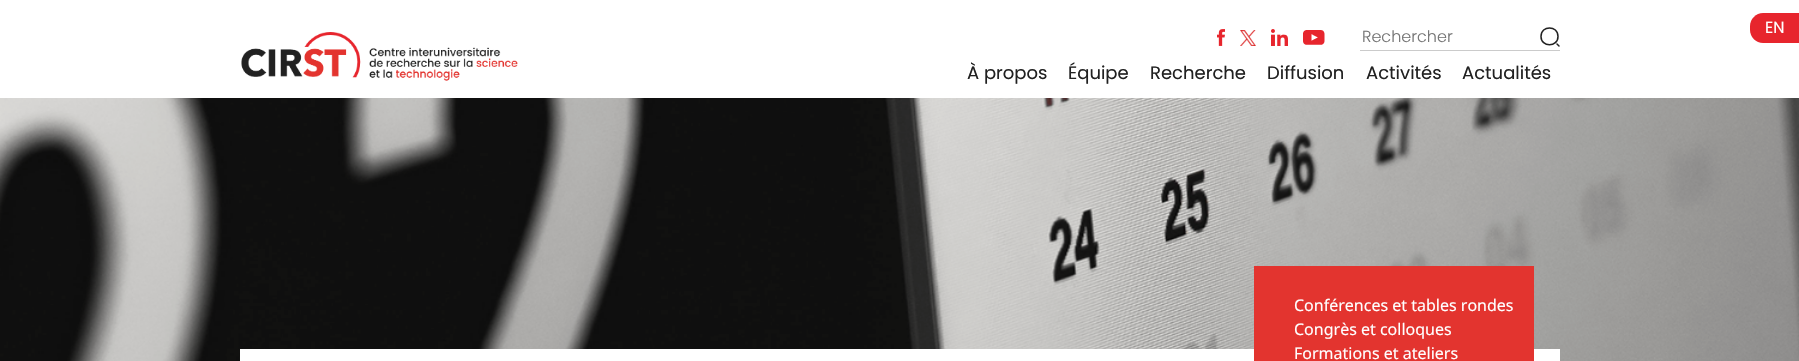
void draw(SkCanvas* canvas) {
    SkPaint paint;
    paint.setAntiAlias(true);
    canvas->clear(0xFFFFFFFF);
    paint.setColor(0xFFE7252D);
    canvas->drawPath(SkPathBuilder().moveTo(1763, 13).lineTo(1799, 13).lineTo(1799, 43).lineTo(1763, 43).cubicTo(1756, 43, 1750, 37, 1750, 30).lineTo(1750, 26).cubicTo(1750, 19, 1756, 13, 1763, 13).close().detach(), paint);
    SkFont font1(fontMgr->matchFamilyStyle("Poppins", SkFontStyle::Normal()), 16);
    font1.setSubpixel(true);
    paint.setColor(0xFFFFFFFF);
    canvas->drawString("EN", 1765, 33, font1, paint);
    canvas->drawImageRect(SkImages::DeferredFromEncodedData(SkData::MakeFromFileName("img1.png")), SkRect::MakeXYWH(241, 32, 277, 49), SkSamplingOptions());
    canvas->drawImageRect(SkImages::DeferredFromEncodedData(SkData::MakeFromFileName("img2.png")), SkRect::MakeXYWH(1217, 29, 8, 17), SkSamplingOptions());
    canvas->drawImageRect(SkImages::DeferredFromEncodedData(SkData::MakeFromFileName("img3.png")), SkRect::MakeXYWH(1240, 30, 16, 16), SkSamplingOptions());
    canvas->drawImageRect(SkImages::DeferredFromEncodedData(SkData::MakeFromFileName("img4.png")), SkRect::MakeXYWH(1271, 29, 17, 17), SkSamplingOptions());
    canvas->drawImageRect(SkImages::DeferredFromEncodedData(SkData::MakeFromFileName("img5.png")), SkRect::MakeXYWH(1303, 30, 22, 15), SkSamplingOptions());
    paint.setStyle(SkPaint::kStroke_Style);
    paint.setStrokeWidth(1.5f);
    paint.setStrokeCap(SkPaint::kRound_Cap);
    paint.setStrokeJoin(SkPaint::kRound_Join);
    paint.setColor(0xFF212121);
    canvas->drawPath(SkPathBuilder().moveTo(1558, 36.5f).cubicTo(1558, 47.5f, 1541, 47.5f, 1541, 36.5f).cubicTo(1541, 25, 1558, 25, 1558, 36.5f).close().moveTo(1559, 46).lineTo(1557, 44).detach(), paint);
    paint.setStyle(SkPaint::kFill_Style);
    paint.setColor(0xFFCBCBCB);
    canvas->drawRect(SkRect::MakeXYWH(1360, 50, 200, 1), paint);
    SkFont font2(fontMgr->matchFamilyStyle("Poppins", SkFontStyle(300, SkFontStyle::kNormal_Width, SkFontStyle::kUpright_Slant)), 16);
    font2.setSubpixel(true);
    paint.setColor(0xFF757575);
    canvas->drawString("Rechercher", 1362, 42, font2, paint);
    SkFont font3(fontMgr->matchFamilyStyle("Poppins", SkFontStyle::Normal()), 18);
    font3.setSubpixel(true);
    paint.setColor(0xFF212121);
    canvas->drawString("À propos", 967, 79, font3, paint);
    canvas->drawString("Équipe", 1068, 79, font3, paint);
    canvas->drawString("Recherche", 1150, 79, font3, paint);
    canvas->drawString("Diffusion", 1267, 79, font3, paint);
    canvas->drawString("Activités", 1366, 79, font3, paint);
    canvas->drawString("Actualités", 1462, 79, font3, paint);
    canvas->drawImageRect(SkImages::DeferredFromEncodedData(SkData::MakeFromFileName("img6.png")), SkRect::MakeXYWH(0, 98, 1799, 263), SkSamplingOptions());
    paint.setColor(0xFFFFFFFF);
    canvas->drawRect(SkRect::MakeXYWH(240, 349, 1320, 12), paint);
    paint.setColor(0xFFE3342F);
    canvas->drawRect(SkRect::MakeXYWH(1254, 266, 280, 95), paint);
    SkFont font4(fontMgr->matchFamilyStyle("Noto Sans", SkFontStyle::Normal()), 16);
    font4.setSubpixel(true);
    paint.setColor(0xFFFFFFFF);
    canvas->drawString("Conférences et tables rondes", 1294, 311, font4, paint);
    canvas->drawString("Congrès et colloques", 1294, 335, font4, paint);
    canvas->drawString("Formations et ateliers", 1294, 359, font4, paint);
}
